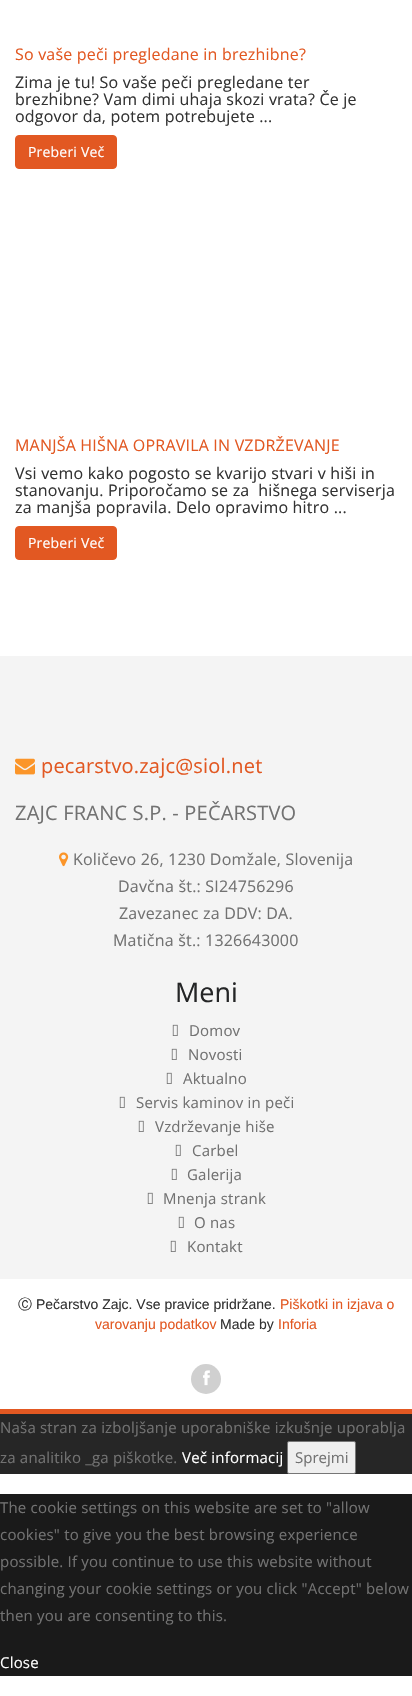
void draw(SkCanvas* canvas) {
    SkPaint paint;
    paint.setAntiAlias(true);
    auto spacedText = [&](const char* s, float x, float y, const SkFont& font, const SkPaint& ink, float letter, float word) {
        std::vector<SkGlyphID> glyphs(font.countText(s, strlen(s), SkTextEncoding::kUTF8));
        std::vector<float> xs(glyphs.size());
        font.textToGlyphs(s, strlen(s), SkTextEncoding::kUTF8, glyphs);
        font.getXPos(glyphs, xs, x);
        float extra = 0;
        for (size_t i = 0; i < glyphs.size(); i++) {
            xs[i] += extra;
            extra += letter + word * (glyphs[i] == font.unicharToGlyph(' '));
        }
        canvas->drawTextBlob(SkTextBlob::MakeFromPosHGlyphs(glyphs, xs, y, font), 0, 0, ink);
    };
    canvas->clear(0xFFFFFFFF);
    SkFont font1(fontMgr->matchFamilyStyle("Open Sans", SkFontStyle::Normal()), 16);
    font1.setSubpixel(true);
    paint.setColor(0xFFE25822);
    spacedText("So vaše peči pregledane in brezhibne?", 15, 60, font1, paint, 0.2f, 0);
    paint.setColor(0xFF333333);
    spacedText("Zima je tu! So vaše peči pregledane ter", 15, 88, font1, paint, 0.2f, 0);
    spacedText("brezhibne? Vam dimi uhaja skozi vrata? Če je", 15, 105, font1, paint, 0.2f, 0);
    spacedText("odgovor da, potem potrebujete ...", 15, 122, font1, paint, 0.2f, 0);
    paint.setColor(0xFFE25822);
    canvas->drawRoundRect(SkRect::MakeXYWH(15.5f, 135.5f, 101, 33), 3.5f, 3.5f, paint);
    paint.setStyle(SkPaint::kStroke_Style);
    paint.setStrokeWidth(1);
    canvas->drawRoundRect(SkRect::MakeXYWH(15.5f, 135.5f, 101, 33), 3.5f, 3.5f, paint);
    SkFont font2(fontMgr->matchFamilyStyle("Open Sans", SkFontStyle::Normal()), 14);
    font2.setSubpixel(true);
    paint.setStyle(SkPaint::kFill_Style);
    paint.setColor(0xFFFFFFFF);
    spacedText("Preberi Več", 28, 157, font2, paint, 0.2f, 0);
    paint.setColor(0xFFE25822);
    spacedText("MANJŠA HIŠNA OPRAVILA IN VZDRŽEVANJE", 15, 451, font1, paint, 0.2f, 0);
    paint.setColor(0xFF333333);
    spacedText("Vsi vemo kako pogosto se kvarijo stvari v hiši in", 15, 479, font1, paint, 0.2f, 0);
    spacedText("stanovanju. Priporočamo se za  hišnega serviserja", 15, 496, font1, paint, 0.2f, 0);
    spacedText("za manjša popravila. Delo opravimo hitro ...", 15, 513, font1, paint, 0.2f, 0);
    paint.setColor(0xFFE25822);
    canvas->drawRoundRect(SkRect::MakeXYWH(15.5f, 526.5f, 101, 33), 3.5f, 3.5f, paint);
    paint.setStyle(SkPaint::kStroke_Style);
    canvas->drawRoundRect(SkRect::MakeXYWH(15.5f, 526.5f, 101, 33), 3.5f, 3.5f, paint);
    paint.setStyle(SkPaint::kFill_Style);
    paint.setColor(0xFFFFFFFF);
    spacedText("Preberi Več", 28, 548, font2, paint, 0.2f, 0);
    paint.setColor(0xFFF4F4F4);
    canvas->drawRect(SkRect::MakeXYWH(0, 656, 412, 623), paint);
    canvas->drawImageRect(SkImages::DeferredFromEncodedData(SkData::MakeFromFileName("img1.png")), SkRect::MakeXYWH(15, 758, 20, 17), SkSamplingOptions());
    SkFont font3(fontMgr->matchFamilyStyle("Open Sans", SkFontStyle::Normal()), 20);
    font3.setSubpixel(true);
    paint.setColor(0xFFE25822);
    spacedText("pecarstvo.zajc@siol.net", 41, 773, font3, paint, 0.2f, 0);
    paint.setColor(0xFF727272);
    spacedText("ZAJC FRANC S.P. - PEČARSTVO", 15, 820, font3, paint, 0.2f, 0);
    canvas->drawImageRect(SkImages::DeferredFromEncodedData(SkData::MakeFromFileName("img2.png")), SkRect::MakeXYWH(59, 852, 10, 15), SkSamplingOptions());
    spacedText("Količevo 26, 1230 Domžale, Slovenija", 73, 865, font1, paint, 0.2f, 0);
    spacedText("Davčna št.: SI24756296", 118, 892, font1, paint, 0.2f, 0);
    spacedText("Zavezanec za DDV: DA.", 119, 919, font1, paint, 0.2f, 0);
    spacedText("Matična št.: 1326643000", 113, 946, font1, paint, 0.2f, 0);
    SkFont font4(fontMgr->matchFamilyStyle("Open Sans", SkFontStyle::Normal()), 27);
    font4.setSubpixel(true);
    paint.setColor(0xFF242526);
    canvas->drawString("Meni", 175, 1002, font4, paint);
    canvas->drawImageRect(SkImages::DeferredFromEncodedData(SkData::MakeFromFileName("img3.png")), SkRect::MakeXYWH(172, 1024, 6, 12), SkSamplingOptions());
    SkFont font5(fontMgr->matchFamilyStyle("Open Sans", SkFontStyle::Normal()), 15);
    font5.setSubpixel(true);
    paint.setColor(0xFF727272);
    spacedText("Domov", 189, 1036, font5, paint, 0.2f, 0);
    canvas->drawImageRect(SkImages::DeferredFromEncodedData(SkData::MakeFromFileName("img3.png")), SkRect::MakeXYWH(171, 1048, 6, 12), SkSamplingOptions());
    spacedText("Novosti", 188, 1060, font5, paint, 0.2f, 0);
    canvas->drawImageRect(SkImages::DeferredFromEncodedData(SkData::MakeFromFileName("img3.png")), SkRect::MakeXYWH(166, 1072, 6, 12), SkSamplingOptions());
    spacedText("Aktualno", 183, 1084, font5, paint, 0.2f, 0);
    canvas->drawImageRect(SkImages::DeferredFromEncodedData(SkData::MakeFromFileName("img3.png")), SkRect::MakeXYWH(119, 1096, 6, 12), SkSamplingOptions());
    spacedText("Servis kaminov in peči", 136, 1108, font5, paint, 0.2f, 0);
    canvas->drawImageRect(SkImages::DeferredFromEncodedData(SkData::MakeFromFileName("img3.png")), SkRect::MakeXYWH(138, 1120, 6, 12), SkSamplingOptions());
    spacedText("Vzdrževanje hiše", 155, 1132, font5, paint, 0.2f, 0);
    canvas->drawImageRect(SkImages::DeferredFromEncodedData(SkData::MakeFromFileName("img3.png")), SkRect::MakeXYWH(175, 1144, 6, 12), SkSamplingOptions());
    spacedText("Carbel", 192, 1156, font5, paint, 0.2f, 0);
    canvas->drawImageRect(SkImages::DeferredFromEncodedData(SkData::MakeFromFileName("img3.png")), SkRect::MakeXYWH(171, 1168, 6, 12), SkSamplingOptions());
    spacedText("Galerija", 187, 1180, font5, paint, 0.2f, 0);
    canvas->drawImageRect(SkImages::DeferredFromEncodedData(SkData::MakeFromFileName("img3.png")), SkRect::MakeXYWH(147, 1192, 6, 12), SkSamplingOptions());
    spacedText("Mnenja strank", 163, 1204, font5, paint, 0.2f, 0);
    canvas->drawImageRect(SkImages::DeferredFromEncodedData(SkData::MakeFromFileName("img3.png")), SkRect::MakeXYWH(178, 1216, 6, 12), SkSamplingOptions());
    spacedText("O nas", 194, 1228, font5, paint, 0.2f, 0);
    canvas->drawImageRect(SkImages::DeferredFromEncodedData(SkData::MakeFromFileName("img3.png")), SkRect::MakeXYWH(170, 1240, 6, 12), SkSamplingOptions());
    spacedText("Kontakt", 187, 1252, font5, paint, 0.2f, 0);
    paint.setColor(0xFFE25822);
    canvas->drawRect(SkRect::MakeXYWH(0, 1409, 412, 5), paint);
    SkFont font6(fontMgr->matchFamilyStyle("WenQuanYi Zen Hei", SkFontStyle(500, SkFontStyle::kNormal_Width, SkFontStyle::kUpright_Slant)), 14);
    font6.setSubpixel(true);
    paint.setColor(0xFF333333);
    canvas->drawString("Ⓒ", 18, 1309, font6, paint);
    SkFont font7(fontMgr->matchFamilyStyle("Liberation Sans", SkFontStyle::Normal()), 14);
    font7.setSubpixel(true);
    canvas->drawString("Pečarstvo Zajc. Vse pravice pridržane.", 36, 1309, font7, paint);
    paint.setColor(0xFFE25822);
    canvas->drawString("Piškotki in izjava o", 280, 1309, font7, paint);
    canvas->drawString("varovanju podatkov", 95, 1329, font7, paint);
    paint.setColor(0xFF333333);
    canvas->drawString("Made by", 220, 1329, font7, paint);
    paint.setColor(0xFFE25822);
    canvas->drawString("Inforia", 278, 1329, font7, paint);
    paint.setColor(0xFFD0D0D0);
    canvas->drawCircle(206, 1379, 15, paint);
    canvas->drawImageRect(SkImages::DeferredFromEncodedData(SkData::MakeFromFileName("img4.png")), SkRect::MakeXYWH(203, 1370, 7, 16), SkSamplingOptions());
    paint.setColor(0xFF262626);
    canvas->drawRect(SkRect::MakeXYWH(0, 1414, 412, 60), paint);
    paint.setColor(0xFF727272);
    spacedText("Naša stran za izboljšanje uporabniške izkušnje uporablja", 0, 1433, font5, paint, 0.2f, 0);
    spacedText("za analitiko _ga piškotke.", 0, 1463, font5, paint, 0.2f, 0);
    paint.setColor(0xFFFFFFFF);
    spacedText("Več informacij", 182, 1463, font5, paint, 0.2f, 0);
    paint.setColor(0xFFEFEFEF);
    canvas->drawRoundRect(SkRect::MakeXYWH(287.5f, 1441.5f, 68, 32), 1.5f, 1.5f, paint);
    paint.setStyle(SkPaint::kStroke_Style);
    paint.setColor(0xFF767676);
    canvas->drawRoundRect(SkRect::MakeXYWH(287.5f, 1441.5f, 68, 32), 1.5f, 1.5f, paint);
    paint.setStyle(SkPaint::kFill_Style);
    paint.setColor(0xFF727272);
    canvas->drawString("Sprejmi", 295, 1463, font5, paint);
    paint.setColor(0xFF1A1A1A);
    canvas->drawRect(SkRect::MakeXYWH(0, 1494, 412, 182), paint);
    paint.setColor(0xFF727272);
    spacedText("The cookie settings on this website are set to \"allow", 0, 1513, font5, paint, 0.2f, 0);
    spacedText("cookies\" to give you the best browsing experience", 0, 1540, font5, paint, 0.2f, 0);
    spacedText("possible. If you continue to use this website without", 0, 1567, font5, paint, 0.2f, 0);
    spacedText("changing your cookie settings or you click \"Accept\" below", 0, 1594, font5, paint, 0.2f, 0);
    spacedText("then you are consenting to this.", 0, 1621, font5, paint, 0.2f, 0);
    paint.setColor(0xFFFFFFFF);
    spacedText("Close", 0, 1668, font5, paint, 0.2f, 0);
}
